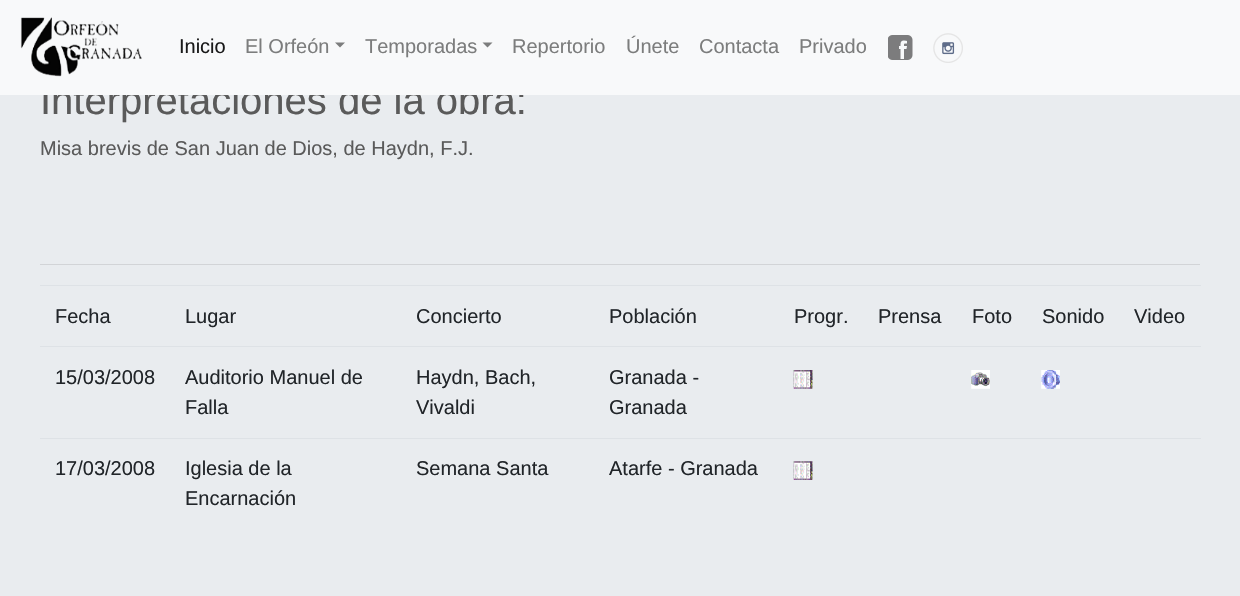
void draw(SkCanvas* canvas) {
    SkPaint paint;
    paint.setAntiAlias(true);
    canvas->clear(0xFFE9ECEF);
    SkFont font1(fontMgr->matchFamilyStyle("Liberation Sans", SkFontStyle::Normal()), 40);
    font1.setSubpixel(true);
    paint.setColor(0xFF5A5A5A);
    canvas->drawString("Interpretaciones de la obra:", 40, 114, font1, paint);
    paint.setColor(0xFFF8F9FA);
    canvas->drawRect(SkRect::MakeXYWH(0, 0, 1240, 95), paint);
    canvas->drawImageRect(SkImages::DeferredFromEncodedData(SkData::MakeFromFileName("img1.png")), SkRect::MakeXYWH(20, 17, 122, 60), SkSamplingOptions());
    SkFont font2(fontMgr->matchFamilyStyle("Liberation Sans", SkFontStyle::Normal()), 20);
    font2.setSubpixel(true);
    paint.setColor(0xFF191919);
    canvas->drawString("Inicio", 179, 53, font2, paint);
    paint.setColor(0xFF7C7D7D);
    canvas->drawString("El Orfeón", 245, 53, font2, paint);
    canvas->drawPath(SkPathBuilder().moveTo(335, 42.5f).lineTo(345, 42.5f).lineTo(340, 47.5f).close().detach(), paint);
    canvas->drawString("Temporadas", 365, 53, font2, paint);
    canvas->drawPath(SkPathBuilder().moveTo(482.5f, 42.5f).lineTo(492.5f, 42.5f).lineTo(487.5f, 47.5f).close().detach(), paint);
    canvas->drawString("Repertorio", 512, 53, font2, paint);
    canvas->drawString("Únete", 626, 53, font2, paint);
    canvas->drawString("Contacta", 699, 53, font2, paint);
    canvas->drawString("Privado", 799, 53, font2, paint);
    canvas->drawImageRect(SkImages::DeferredFromEncodedData(SkData::MakeFromFileName("img2.png")), SkRect::MakeXYWH(888, 35, 25, 25), SkSamplingOptions());
    canvas->drawImageRect(SkImages::DeferredFromEncodedData(SkData::MakeFromFileName("img3.png")), SkRect::MakeXYWH(933, 33, 30, 30), SkSamplingOptions());
    paint.setColor(0xFF5A5A5A);
    canvas->drawString("Misa brevis de San Juan de Dios, de Haydn, F.J.", 40, 155, font2, paint);
    paint.setColor(0xFFD2D4D7);
    canvas->drawRect(SkRect::MakeXYWH(40, 264, 1160, 1), paint);
    paint.setColor(0xFF212529);
    canvas->drawString("Fecha", 55, 323, font2, paint);
    canvas->drawString("Lugar", 185, 323, font2, paint);
    canvas->drawString("Concierto", 416, 323, font2, paint);
    canvas->drawString("Población", 609, 323, font2, paint);
    canvas->drawString("Progr.", 794, 323, font2, paint);
    canvas->drawString("Prensa", 878, 323, font2, paint);
    canvas->drawString("Foto", 972, 323, font2, paint);
    canvas->drawString("Sonido", 1042, 323, font2, paint);
    paint.setColor(0xFFDEE2E6);
    canvas->drawRect(SkRect::MakeXYWH(40, 285, 1161, 1), paint);
    paint.setColor(0xFF212529);
    canvas->drawString("Video", 1134, 323, font2, paint);
    paint.setColor(0xFFDEE2E6);
    canvas->drawRect(SkRect::MakeXYWH(40, 346, 1161, 1), paint);
    paint.setColor(0xFF212529);
    canvas->drawString("15/03/2008", 55, 384, font2, paint);
    canvas->drawString("Auditorio Manuel de", 185, 384, font2, paint);
    canvas->drawString("Falla", 185, 414, font2, paint);
    canvas->drawString("Haydn, Bach,", 416, 384, font2, paint);
    canvas->drawString("Vivaldi", 416, 414, font2, paint);
    canvas->drawString("Granada -", 609, 384, font2, paint);
    canvas->drawString("Granada", 609, 414, font2, paint);
    canvas->drawImageRect(SkImages::DeferredFromEncodedData(SkData::MakeFromFileName("img4.png")), SkRect::MakeXYWH(793, 370, 20, 19), SkSamplingOptions());
    canvas->drawImageRect(SkImages::DeferredFromEncodedData(SkData::MakeFromFileName("img5.png")), SkRect::MakeXYWH(971, 370, 19, 19), SkSamplingOptions());
    canvas->drawImageRect(SkImages::DeferredFromEncodedData(SkData::MakeFromFileName("img6.png")), SkRect::MakeXYWH(1041, 370, 19, 19), SkSamplingOptions());
    paint.setColor(0xFFDEE2E6);
    canvas->drawRect(SkRect::MakeXYWH(40, 438, 1161, 1), paint);
    paint.setColor(0xFF212529);
    canvas->drawString("17/03/2008", 55, 475, font2, paint);
    canvas->drawString("Iglesia de la", 185, 475, font2, paint);
    canvas->drawString("Encarnación", 185, 505, font2, paint);
    canvas->drawString("Semana Santa", 416, 475, font2, paint);
    canvas->drawString("Atarfe - Granada", 609, 475, font2, paint);
    canvas->drawImageRect(SkImages::DeferredFromEncodedData(SkData::MakeFromFileName("img7.png")), SkRect::MakeXYWH(793, 461, 20, 19), SkSamplingOptions());
}
